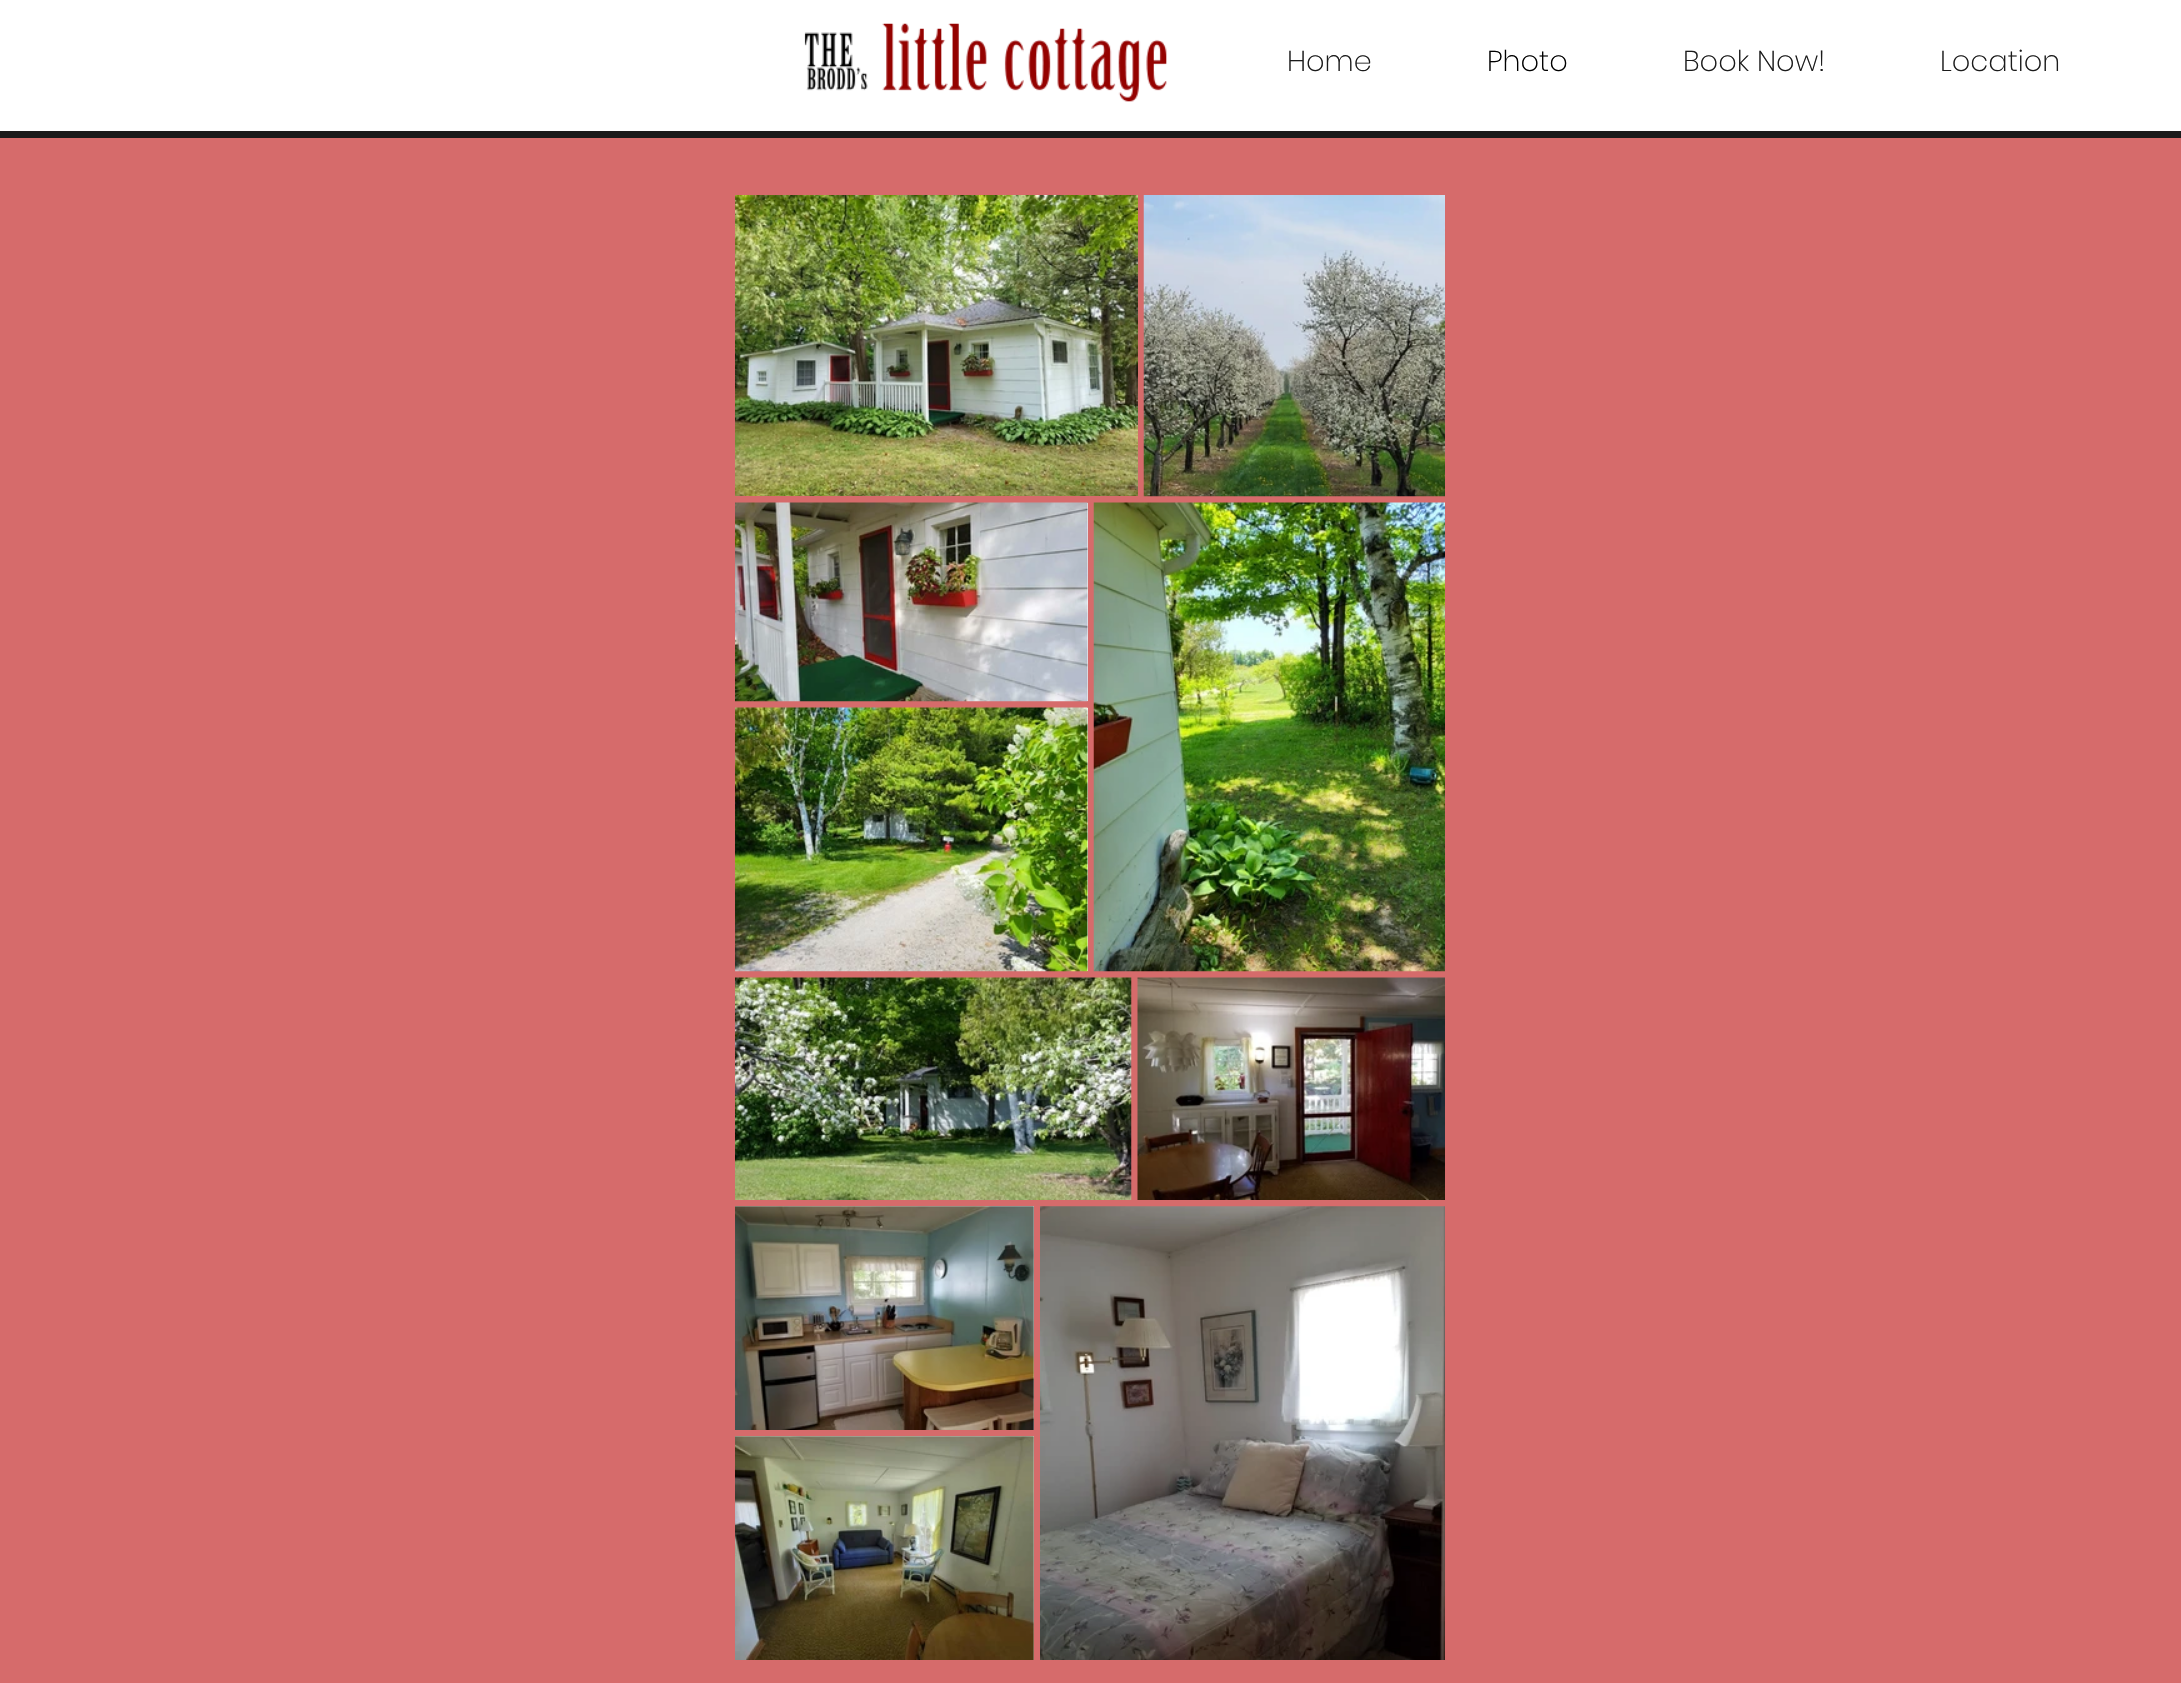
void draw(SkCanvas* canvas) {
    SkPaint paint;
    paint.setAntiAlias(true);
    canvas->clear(0xFFD66B6B);
    paint.setColor(0xFF1B1B1B);
    canvas->drawRect(SkRect::MakeXYWH(0, 131, 2181, 7), paint);
    paint.setColor(0xFFFFFFFF);
    canvas->drawRect(SkRect::MakeXYWH(0, 0, 2181, 131), paint);
    canvas->drawImageRect(SkImages::DeferredFromEncodedData(SkData::MakeFromFileName("img1.png")), SkRect::MakeXYWH(804, 23, 363, 79), SkSamplingOptions());
    SkFont font1(fontMgr->matchFamilyStyle("Poppins", SkFontStyle(200, SkFontStyle::kNormal_Width, SkFontStyle::kUpright_Slant)), 28.75f);
    font1.setSubpixel(true);
    paint.setColor(0xFF1B1B1B);
    canvas->drawString("Home", 1287, 71, font1, paint);
    paint.setColor(0xFF000000);
    canvas->drawString("Photo", 1487, 71, font1, paint);
    paint.setColor(0xFF1B1B1B);
    canvas->drawString("Book Now!", 1683, 71, font1, paint);
    canvas->drawString("Location", 1940, 71, font1, paint);
    canvas->drawImageRect(SkImages::DeferredFromEncodedData(SkData::MakeFromFileName("img2.png")), SkRect::MakeXYWH(735, 195, 403, 301), SkSamplingOptions());
    canvas->drawImageRect(SkImages::DeferredFromEncodedData(SkData::MakeFromFileName("img3.png")), SkRect::MakeXYWH(1143, 195, 302, 302), SkSamplingOptions());
    paint.setColor(0xFFFFFCFC);
    canvas->drawRect(SkRect::MakeXYWH(1087, 503, 1, 198), paint);
    canvas->drawImageRect(SkImages::DeferredFromEncodedData(SkData::MakeFromFileName("img4.png")), SkRect::MakeXYWH(735, 502, 353, 200), SkSamplingOptions());
    canvas->drawImageRect(SkImages::DeferredFromEncodedData(SkData::MakeFromFileName("img5.png")), SkRect::MakeXYWH(1093, 502, 352, 470), SkSamplingOptions());
    canvas->drawRect(SkRect::MakeXYWH(1087, 708, 1, 263), paint);
    canvas->drawImageRect(SkImages::DeferredFromEncodedData(SkData::MakeFromFileName("img6.png")), SkRect::MakeXYWH(735, 707, 353, 265), SkSamplingOptions());
    canvas->drawImageRect(SkImages::DeferredFromEncodedData(SkData::MakeFromFileName("img7.png")), SkRect::MakeXYWH(735, 977, 397, 223), SkSamplingOptions());
    canvas->drawImageRect(SkImages::DeferredFromEncodedData(SkData::MakeFromFileName("img8.png")), SkRect::MakeXYWH(1137, 977, 308, 223), SkSamplingOptions());
    canvas->drawRect(SkRect::MakeXYWH(735, 1206, 299, 224), paint);
    canvas->drawImageRect(SkImages::DeferredFromEncodedData(SkData::MakeFromFileName("img9.png")), SkRect::MakeXYWH(735, 1206, 299, 224), SkSamplingOptions());
    canvas->drawImageRect(SkImages::DeferredFromEncodedData(SkData::MakeFromFileName("img10.png")), SkRect::MakeXYWH(1040, 1206, 405, 454), SkSamplingOptions());
    canvas->drawRect(SkRect::MakeXYWH(735, 1436, 299, 224), paint);
    canvas->drawImageRect(SkImages::DeferredFromEncodedData(SkData::MakeFromFileName("img11.png")), SkRect::MakeXYWH(735, 1436, 299, 224), SkSamplingOptions());
}
